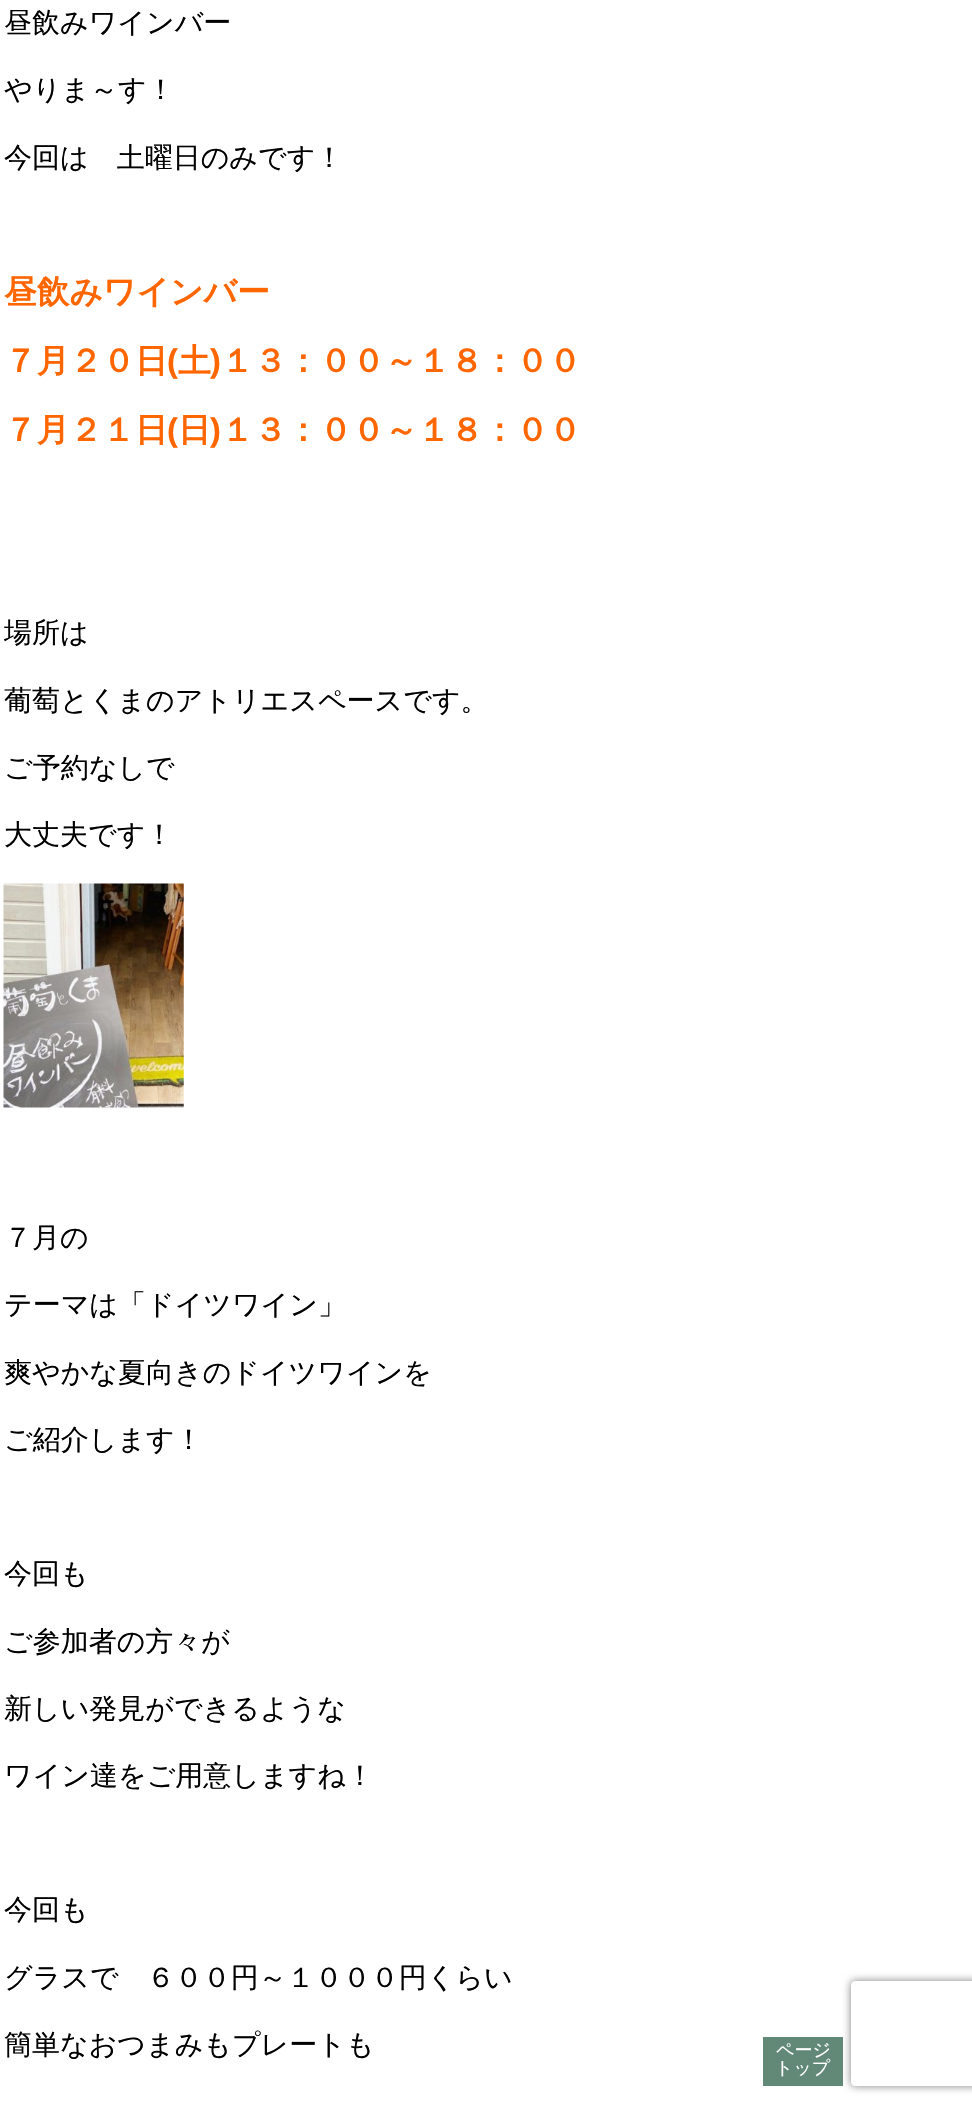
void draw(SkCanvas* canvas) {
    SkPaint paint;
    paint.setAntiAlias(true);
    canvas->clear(0xFFFFFFFF);
    SkFont font1(fontMgr->matchFamilyStyle("WenQuanYi Zen Hei", SkFontStyle(500, SkFontStyle::kNormal_Width, SkFontStyle::kUpright_Slant)), 28);
    font1.setSubpixel(true);
    paint.setColor(0xFF000000);
    canvas->drawString("昼飲みワインバー", 4, 32, font1, paint);
    canvas->drawString("やりま～す！", 4, 99, font1, paint);
    canvas->drawString("今回は　土曜日のみです！", 4, 167, font1, paint);
    SkFont font2(fontMgr->matchFamilyStyle("WenQuanYi Zen Hei", SkFontStyle::Bold()), 32.75f);
    font2.setSubpixel(true);
    paint.setColor(0xFFFF6600);
    canvas->drawString("昼飲みワインバー", 4, 303, font2, paint);
    canvas->drawString("７月２０日", 4, 372, font2, paint);
    SkFont font3(fontMgr->matchFamilyStyle("Liberation Sans", SkFontStyle::Bold()), 32.75f);
    font3.setSubpixel(true);
    canvas->drawString("(", 167, 372, font3, paint);
    canvas->drawString("土", 178, 372, font2, paint);
    canvas->drawString(")", 210, 372, font3, paint);
    canvas->drawString("１３：００～１８：００", 221, 372, font2, paint);
    canvas->drawString("７月２１日", 4, 441, font2, paint);
    canvas->drawString("(", 167, 441, font3, paint);
    canvas->drawString("日", 178, 441, font2, paint);
    canvas->drawString(")", 210, 441, font3, paint);
    canvas->drawString("１３：００～１８：００", 221, 441, font2, paint);
    paint.setColor(0xFF000000);
    canvas->drawString("場所は", 4, 642, font1, paint);
    canvas->drawString("葡萄とくまのアトリエスペースです。", 4, 710, font1, paint);
    canvas->drawString("ご予約なしで", 4, 777, font1, paint);
    canvas->drawString("大丈夫です！", 4, 844, font1, paint);
    canvas->drawImageRect(SkImages::DeferredFromEncodedData(SkData::MakeFromFileName("img1.png")), SkRect::MakeXYWH(3, 883, 181, 225), SkSamplingOptions());
    canvas->drawString("７月の", 4, 1247, font1, paint);
    canvas->drawString("テーマは「ドイツワイン」", 4, 1314, font1, paint);
    canvas->drawString("爽やかな夏向きのドイツワインを", 4, 1382, font1, paint);
    canvas->drawString("ご紹介します！", 4, 1449, font1, paint);
    canvas->drawString("今回も", 4, 1583, font1, paint);
    canvas->drawString("ご参加者の方々が", 4, 1651, font1, paint);
    canvas->drawString("新しい発見ができるような", 4, 1718, font1, paint);
    canvas->drawString("ワイン達をご用意しますね！", 4, 1785, font1, paint);
    canvas->drawString("今回も", 4, 1919, font1, paint);
    canvas->drawString("グラスで　６００円～１０００円くらい", 4, 1987, font1, paint);
    canvas->drawString("簡単なおつまみもプレートも", 4, 2054, font1, paint);
    paint.setColor(0xFF628878);
    canvas->drawRect(SkRect::MakeXYWH(763, 2037, 80, 49), paint);
    SkFont font4(fontMgr->matchFamilyStyle("WenQuanYi Zen Hei", SkFontStyle(500, SkFontStyle::kNormal_Width, SkFontStyle::kUpright_Slant)), 18);
    font4.setSubpixel(true);
    paint.setColor(0xFFFFFFFF);
    canvas->drawString("ページ", 776, 2056, font4, paint);
    canvas->drawString("トップ", 775, 2074, font4, paint);
    canvas->save();
    canvas->clipPath(SkPathBuilder(SkPathFillType::kEvenOdd).moveTo(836, 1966).lineTo(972, 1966).lineTo(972, 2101).lineTo(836, 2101).close().moveTo(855, 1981).lineTo(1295, 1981).cubicTo(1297, 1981, 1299, 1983, 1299, 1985).lineTo(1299, 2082).cubicTo(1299, 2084, 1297, 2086, 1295, 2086).lineTo(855, 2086).cubicTo(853, 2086, 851, 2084, 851, 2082).lineTo(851, 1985).cubicTo(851, 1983, 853, 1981, 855, 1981).close().detach(), true);
    paint.setColor(0xFF808080);
    paint.setMaskFilter(SkMaskFilter::MakeBlur(kNormal_SkBlurStyle, 4.5f));
    canvas->drawRoundRect(SkRect::MakeXYWH(851, 1981, 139, 105), 4, 4, paint);
    paint.setMaskFilter(nullptr);
    canvas->restore();
}
